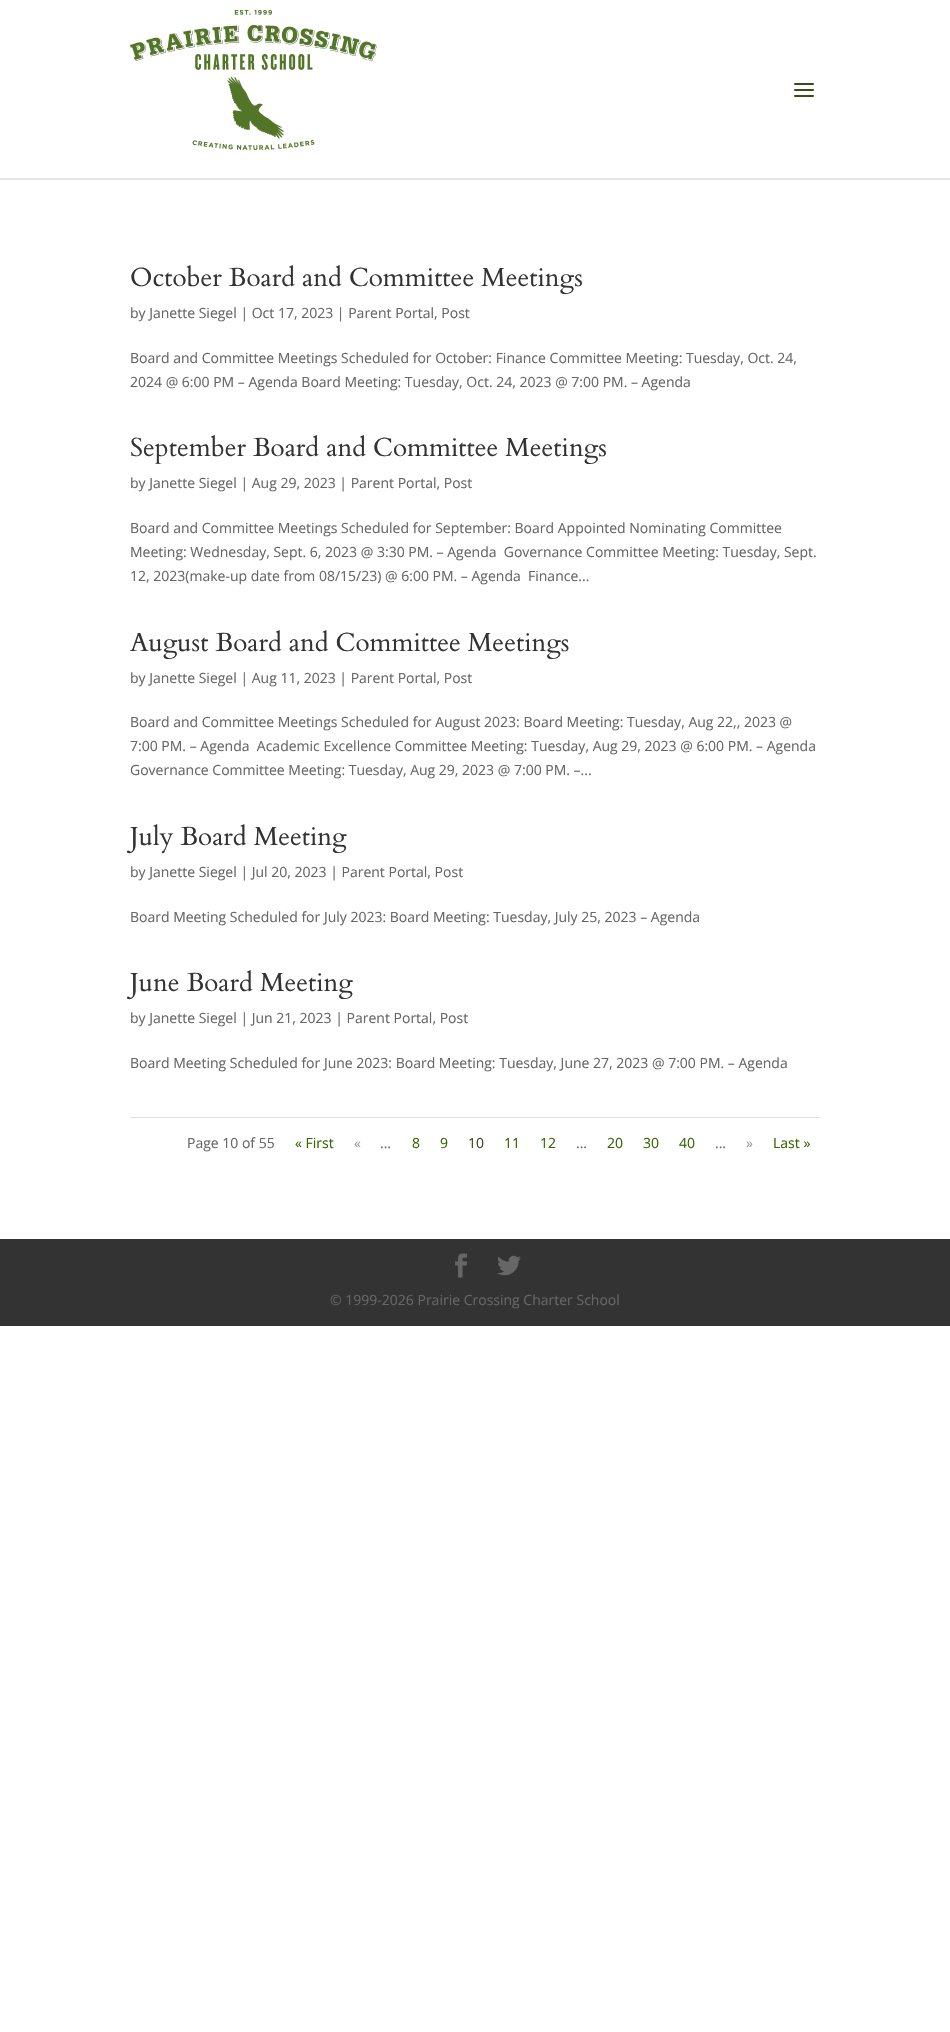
void draw(SkCanvas* canvas) {
    SkPaint paint;
    paint.setAntiAlias(true);
    canvas->clear(0xFFFFFFFF);
    paint.setColor(0xFFE6E6E6);
    canvas->drawRect(SkRect::MakeXYWH(0, 179, 950, 1), paint);
    paint.setColor(0xFFE5E5E5);
    canvas->drawRect(SkRect::MakeXYWH(0, 178, 950, 1), paint);
    canvas->drawImageRect(SkImages::DeferredFromEncodedData(SkData::MakeFromFileName("img1.png")), SkRect::MakeXYWH(130, 10, 247, 140), SkSamplingOptions());
    canvas->drawImageRect(SkImages::DeferredFromEncodedData(SkData::MakeFromFileName("img2.png")), SkRect::MakeXYWH(794, 83, 20, 14), SkSamplingOptions());
    SkFont font1(fontMgr->matchFamilyStyle("Cardo", SkFontStyle::Normal()), 26);
    font1.setSubpixel(true);
    paint.setColor(0xFF333333);
    canvas->drawString("October Board and Committee Meetings", 130, 286, font1, paint);
    SkFont font2(fontMgr->matchFamilyStyle("Open Sans", SkFontStyle::Normal()), 14);
    font2.setSubpixel(true);
    paint.setColor(0xFF666666);
    canvas->drawString("by Janette Siegel | Oct 17, 2023 | Parent Portal, Post", 130, 318, font2, paint);
    canvas->drawString("Board and Committee Meetings Scheduled for October: Finance Committee Meeting: Tuesday, Oct. 24,", 130, 363, font2, paint);
    canvas->drawString("2024 @ 6:00 PM – Agenda Board Meeting: Tuesday, Oct. 24, 2023 @ 7:00 PM. – Agenda", 130, 387, font2, paint);
    paint.setColor(0xFF333333);
    canvas->drawString("September Board and Committee Meetings", 130, 456, font1, paint);
    paint.setColor(0xFF666666);
    canvas->drawString("by Janette Siegel | Aug 29, 2023 | Parent Portal, Post", 130, 488, font2, paint);
    canvas->drawString("Board and Committee Meetings Scheduled for September: Board Appointed Nominating Committee", 130, 533, font2, paint);
    canvas->drawString("Meeting: Wednesday, Sept. 6, 2023 @ 3:30 PM. – Agenda  Governance Committee Meeting: Tuesday, Sept.", 130, 557, font2, paint);
    canvas->drawString("12, 2023(make-up date from 08/15/23) @ 6:00 PM. – Agenda  Finance...", 130, 581, font2, paint);
    paint.setColor(0xFF333333);
    canvas->drawString("August Board and Committee Meetings", 130, 651, font1, paint);
    paint.setColor(0xFF666666);
    canvas->drawString("by Janette Siegel | Aug 11, 2023 | Parent Portal, Post", 130, 683, font2, paint);
    canvas->drawString("Board and Committee Meetings Scheduled for August 2023: Board Meeting: Tuesday, Aug 22,, 2023 @", 130, 727, font2, paint);
    canvas->drawString("7:00 PM. – Agenda  Academic Excellence Committee Meeting: Tuesday, Aug 29, 2023 @ 6:00 PM. – Agenda", 130, 751, font2, paint);
    canvas->drawString("Governance Committee Meeting: Tuesday, Aug 29, 2023 @ 7:00 PM. –...", 130, 775, font2, paint);
    paint.setColor(0xFF333333);
    canvas->drawString("July Board Meeting", 130, 845, font1, paint);
    paint.setColor(0xFF666666);
    canvas->drawString("by Janette Siegel | Jul 20, 2023 | Parent Portal, Post", 130, 877, font2, paint);
    canvas->drawString("Board Meeting Scheduled for July 2023: Board Meeting: Tuesday, July 25, 2023 – Agenda", 130, 922, font2, paint);
    paint.setColor(0xFF333333);
    canvas->drawString("June Board Meeting", 130, 991, font1, paint);
    paint.setColor(0xFF666666);
    canvas->drawString("by Janette Siegel | Jun 21, 2023 | Parent Portal, Post", 130, 1023, font2, paint);
    canvas->drawString("Board Meeting Scheduled for June 2023: Board Meeting: Tuesday, June 27, 2023 @ 7:00 PM. – Agenda", 130, 1068, font2, paint);
    paint.setColor(0xFFE2E2E2);
    canvas->drawRect(SkRect::MakeXYWH(130, 1117, 690, 1), paint);
    paint.setColor(0xFF666666);
    canvas->drawString("Page 10 of 55", 187, 1148, font2, paint);
    paint.setColor(0xFF336600);
    canvas->drawString("« First", 295, 1148, font2, paint);
    paint.setColor(0xFF999999);
    canvas->drawString("«", 354, 1148, font2, paint);
    paint.setColor(0xFF666666);
    canvas->drawString("...", 380, 1148, font2, paint);
    paint.setColor(0xFF336600);
    canvas->drawString("8", 412, 1148, font2, paint);
    canvas->drawString("9", 440, 1148, font2, paint);
    paint.setColor(0xFF384C16);
    canvas->drawString("10", 468, 1148, font2, paint);
    paint.setColor(0xFF336600);
    canvas->drawString("11", 504, 1148, font2, paint);
    canvas->drawString("12", 540, 1148, font2, paint);
    paint.setColor(0xFF666666);
    canvas->drawString("...", 576, 1148, font2, paint);
    paint.setColor(0xFF336600);
    canvas->drawString("20", 607, 1148, font2, paint);
    canvas->drawString("30", 643, 1148, font2, paint);
    canvas->drawString("40", 679, 1148, font2, paint);
    paint.setColor(0xFF666666);
    canvas->drawString("...", 715, 1148, font2, paint);
    paint.setColor(0xFF999999);
    canvas->drawString("»", 746, 1148, font2, paint);
    paint.setColor(0xFF336600);
    canvas->drawString("Last »", 773, 1148, font2, paint);
    paint.setColor(0xFF333333);
    canvas->drawRect(SkRect::MakeXYWH(0, 1239, 950, 87), paint);
    canvas->drawImageRect(SkImages::DeferredFromEncodedData(SkData::MakeFromFileName("img3.png")), SkRect::MakeXYWH(455, 1253, 12, 25), SkSamplingOptions());
    canvas->drawImageRect(SkImages::DeferredFromEncodedData(SkData::MakeFromFileName("img4.png")), SkRect::MakeXYWH(497, 1255, 24, 21), SkSamplingOptions());
    paint.setColor(0xFF666666);
    canvas->drawString("© 1999-2026 Prairie Crossing Charter School", 330, 1305, font2, paint);
}
